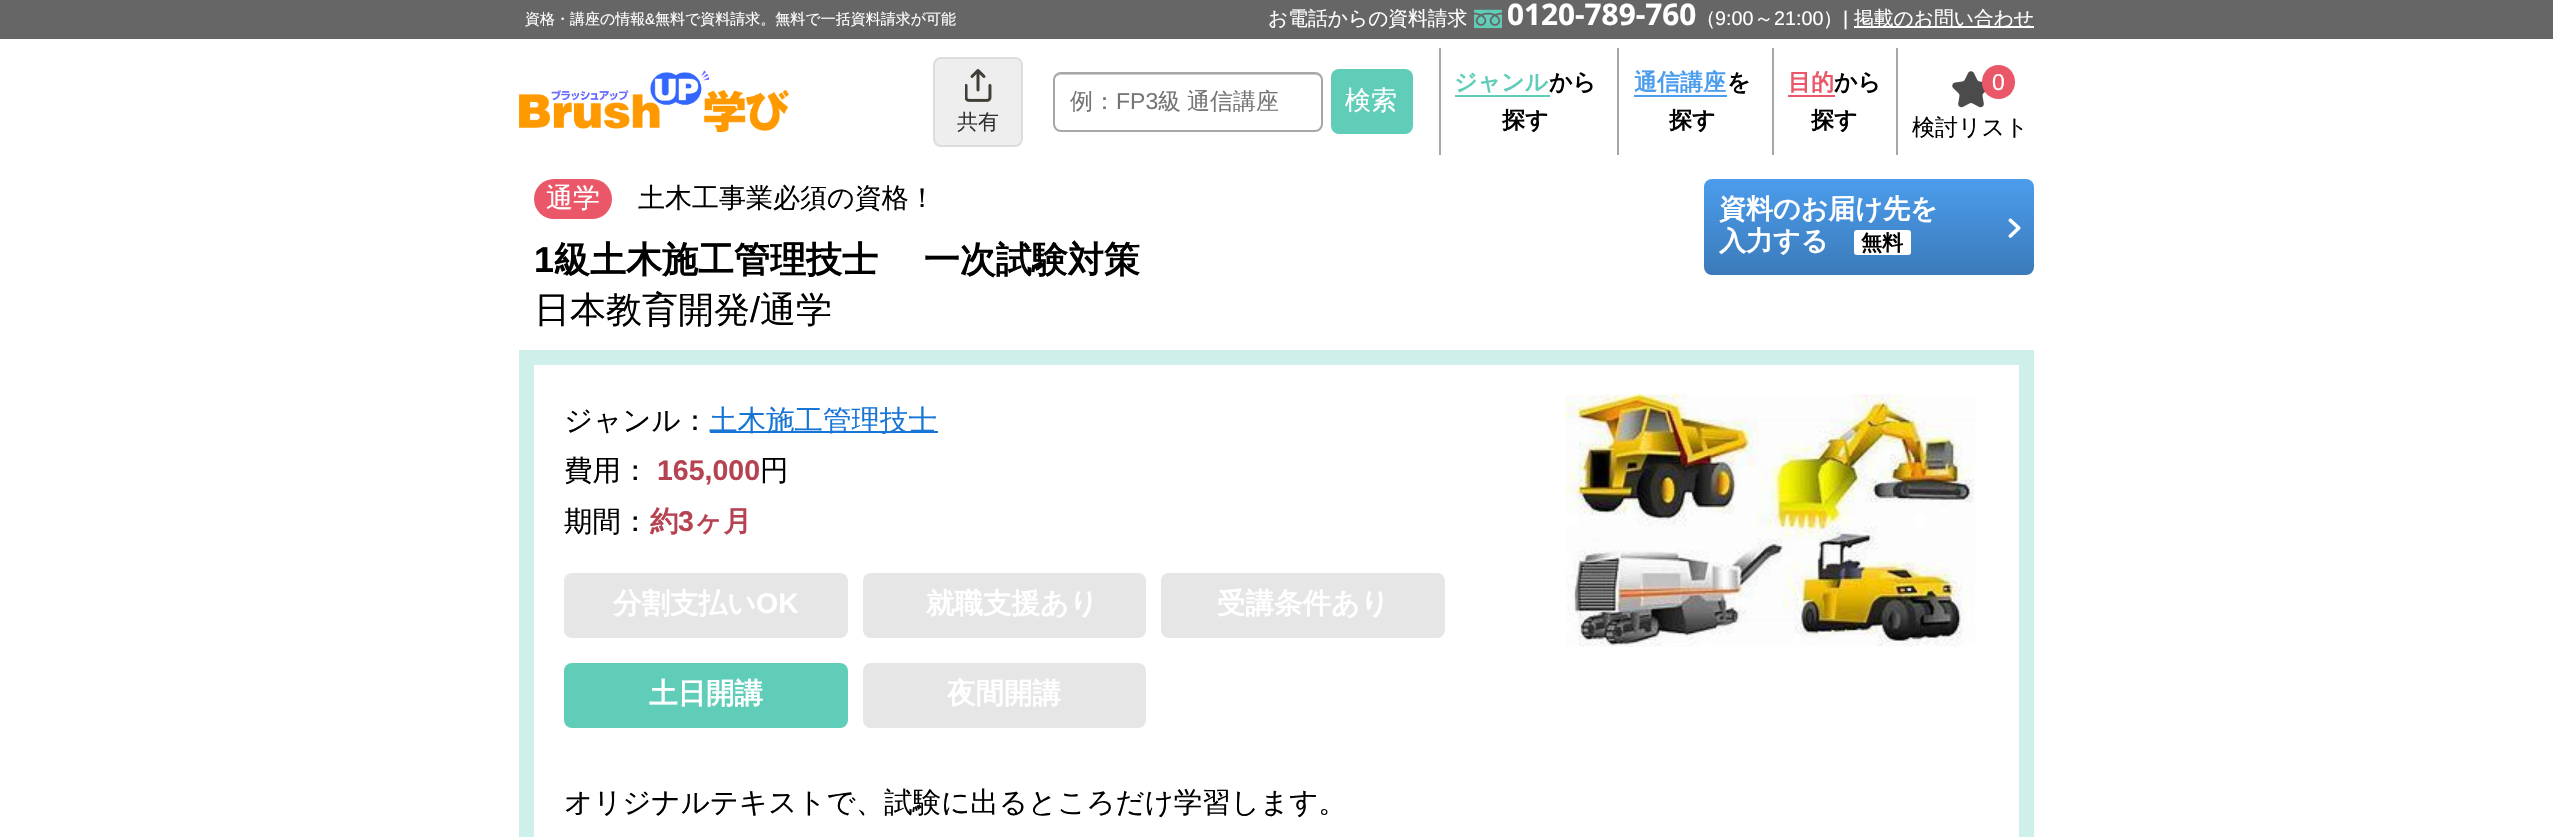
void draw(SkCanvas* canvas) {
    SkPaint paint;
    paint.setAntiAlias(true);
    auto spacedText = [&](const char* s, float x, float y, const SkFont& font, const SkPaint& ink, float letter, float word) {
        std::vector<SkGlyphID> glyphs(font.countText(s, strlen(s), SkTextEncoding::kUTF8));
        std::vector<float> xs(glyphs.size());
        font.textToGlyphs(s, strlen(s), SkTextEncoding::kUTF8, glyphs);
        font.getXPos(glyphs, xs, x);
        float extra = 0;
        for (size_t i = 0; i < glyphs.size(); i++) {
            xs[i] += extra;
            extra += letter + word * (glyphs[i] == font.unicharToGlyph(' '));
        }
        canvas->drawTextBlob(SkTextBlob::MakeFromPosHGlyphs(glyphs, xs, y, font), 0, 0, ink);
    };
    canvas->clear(0xFFFFFFFF);
    paint.setColor(0xFF666666);
    canvas->drawRect(SkRect::MakeXYWH(0, 0, 2553, 39), paint);
    SkFont font1(fontMgr->matchFamilyStyle("WenQuanYi Zen Hei", SkFontStyle(500, SkFontStyle::kNormal_Width, SkFontStyle::kUpright_Slant)), 15);
    font1.setSubpixel(true);
    paint.setColor(0xFFFFFFFF);
    canvas->drawString("資格・講座の情報", 525, 24, font1, paint);
    SkFont font2(fontMgr->matchFamilyStyle("Liberation Sans", SkFontStyle::Normal()), 15);
    font2.setSubpixel(true);
    canvas->drawString("&", 645, 24, font2, paint);
    canvas->drawString("無料で資料請求。無料で一括資料請求が可能", 655, 24, font1, paint);
    SkFont font3(fontMgr->matchFamilyStyle("WenQuanYi Zen Hei", SkFontStyle(500, SkFontStyle::kNormal_Width, SkFontStyle::kUpright_Slant)), 19.75f);
    font3.setSubpixel(true);
    canvas->drawString("お電話からの資料請求", 1268, 25, font3, paint);
    canvas->drawImageRect(SkImages::DeferredFromEncodedData(SkData::MakeFromFileName("img1.png")), SkRect::MakeXYWH(1474, 9, 28, 20), SkSamplingOptions());
    SkFont font4(fontMgr->matchFamilyStyle("Open Sans", SkFontStyle::Bold()), 29.75f);
    font4.setSubpixel(true);
    canvas->drawString("0120-789-760", 1507, 25, font4, paint);
    canvas->drawString("（", 1696, 25, font3, paint);
    SkFont font5(fontMgr->matchFamilyStyle("Liberation Sans", SkFontStyle::Normal()), 19.75f);
    font5.setSubpixel(true);
    canvas->drawString("9:00", 1715, 25, font5, paint);
    canvas->drawString("～", 1754, 25, font3, paint);
    canvas->drawString("21:00", 1774, 25, font5, paint);
    canvas->drawString("）", 1823, 25, font3, paint);
    canvas->drawString("|", 1843, 25, font5, paint);
    canvas->drawRect(SkRect::MakeXYWH(1854, 26, 180, 2), paint);
    canvas->drawString("掲載のお問い合わせ", 1854, 25, font3, paint);
    canvas->drawImageRect(SkImages::DeferredFromEncodedData(SkData::MakeFromFileName("img2.png")), SkRect::MakeXYWH(519, 70, 270, 62), SkSamplingOptions());
    paint.setColor(0xFFCCCCCC);
    canvas->drawPath(SkPathBuilder().moveTo(1060, 75).lineTo(1316, 75).cubicTo(1319, 75, 1322, 78, 1322, 81).lineTo(1322, 80).cubicTo(1322, 77, 1319, 74, 1316, 74).lineTo(1061, 74).cubicTo(1059, 74, 1057, 75, 1056, 77).cubicTo(1057, 76, 1059, 75, 1060, 75).close().detach(), paint);
    paint.setStyle(SkPaint::kStroke_Style);
    paint.setStrokeWidth(2);
    paint.setColor(0xFFA7A7A7);
    canvas->drawRoundRect(SkRect::MakeXYWH(1054, 73, 268, 58), 7, 7, paint);
    SkFont font6(fontMgr->matchFamilyStyle("WenQuanYi Zen Hei", SkFontStyle(500, SkFontStyle::kNormal_Width, SkFontStyle::kUpright_Slant)), 23);
    font6.setSubpixel(true);
    paint.setStyle(SkPaint::kFill_Style);
    paint.setColor(0xFF757575);
    canvas->drawString("例：", 1070, 109, font6, paint);
    SkFont font7(fontMgr->matchFamilyStyle("Liberation Sans", SkFontStyle::Normal()), 23);
    font7.setSubpixel(true);
    canvas->drawString("FP3", 1116, 109, font7, paint);
    spacedText("級 通信講座", 1158, 109, font6, paint, 0, -1);
    paint.setColor(0xFF60CDB8);
    canvas->drawRoundRect(SkRect::MakeXYWH(1331, 69, 82, 65), 8, 8, paint);
    SkFont font8(fontMgr->matchFamilyStyle("WenQuanYi Zen Hei", SkFontStyle(500, SkFontStyle::kNormal_Width, SkFontStyle::kUpright_Slant)), 26);
    font8.setSubpixel(true);
    paint.setColor(0xFFFFFFFF);
    canvas->drawString("検索", 1345, 109, font8, paint);
    paint.setColor(0xFFA7A7A7);
    canvas->drawRect(SkRect::MakeXYWH(1439, 48, 2, 107), paint);
    SkFont font9(fontMgr->matchFamilyStyle("WenQuanYi Zen Hei", SkFontStyle::Bold()), 23);
    font9.setSubpixel(true);
    paint.setColor(0xFF60CDB8);
    canvas->drawString("ジャンル", 1454, 90, font9, paint);
    canvas->drawRect(SkRect::MakeXYWH(1455, 95, 95, 2), paint);
    paint.setColor(0xFF000000);
    canvas->drawString("から", 1549, 90, font9, paint);
    canvas->drawString("探す", 1502, 128, font9, paint);
    paint.setColor(0xFFA7A7A7);
    canvas->drawRect(SkRect::MakeXYWH(1617, 48, 2, 107), paint);
    paint.setColor(0xFF4C9DED);
    canvas->drawString("通信講座", 1634, 90, font9, paint);
    canvas->drawRect(SkRect::MakeXYWH(1634, 95, 93, 2), paint);
    paint.setColor(0xFF000000);
    canvas->drawString("を", 1727, 90, font9, paint);
    canvas->drawString("探す", 1669, 128, font9, paint);
    paint.setColor(0xFFA7A7A7);
    canvas->drawRect(SkRect::MakeXYWH(1896, 48, 2, 107), paint);
    canvas->drawRect(SkRect::MakeXYWH(1772, 48, 2, 107), paint);
    paint.setColor(0xFFEA5768);
    canvas->drawString("目的", 1788, 90, font9, paint);
    canvas->drawRect(SkRect::MakeXYWH(1788, 95, 47, 2), paint);
    paint.setColor(0xFF000000);
    canvas->drawString("から", 1834, 90, font9, paint);
    canvas->drawString("探す", 1811, 128, font9, paint);
    canvas->drawImageRect(SkImages::DeferredFromEncodedData(SkData::MakeFromFileName("img3.png")), SkRect::MakeXYWH(1952, 71, 33, 37), SkSamplingOptions());
    paint.setColor(0xFFEA5768);
    canvas->drawRoundRect(SkRect::MakeXYWH(1982, 65, 33, 34), 16.5f, 16.5f, paint);
    paint.setColor(0xFFFFFFFF);
    canvas->drawString("0", 1992, 90, font7, paint);
    paint.setColor(0xFF000000);
    canvas->drawString("検討リスト", 1912, 135, font6, paint);
    paint.setColor(0xFFEEEEEE);
    canvas->drawRoundRect(SkRect::MakeXYWH(934, 58, 88, 88), 7, 7, paint);
    paint.setStyle(SkPaint::kStroke_Style);
    paint.setColor(0xFFDDDDDD);
    canvas->drawRoundRect(SkRect::MakeXYWH(934, 58, 88, 88), 7, 7, paint);
    canvas->drawImageRect(SkImages::DeferredFromEncodedData(SkData::MakeFromFileName("img4.png")), SkRect::MakeXYWH(965, 69, 27, 33), SkSamplingOptions());
    SkFont font10(fontMgr->matchFamilyStyle("WenQuanYi Zen Hei", SkFontStyle(500, SkFontStyle::kNormal_Width, SkFontStyle::kUpright_Slant)), 21);
    font10.setSubpixel(true);
    paint.setStyle(SkPaint::kFill_Style);
    paint.setColor(0xFF333333);
    canvas->drawString("共有", 957, 129, font10, paint);
    paint.setColor(0xFFEA5768);
    canvas->drawRoundRect(SkRect::MakeXYWH(534, 179, 78, 40), 20, 20, paint);
    SkFont font11(fontMgr->matchFamilyStyle("WenQuanYi Zen Hei", SkFontStyle(500, SkFontStyle::kNormal_Width, SkFontStyle::kUpright_Slant)), 27);
    font11.setSubpixel(true);
    paint.setColor(0xFFFFFFFF);
    canvas->drawString("通学", 546, 207, font11, paint);
    paint.setColor(0xFF000000);
    canvas->drawString("土木工事業必須の資格！", 638, 207, font11, paint);
    {
        const SkColor colors[] = {0xFF4C9DED, 0xFF3B7AB9};
        const float stops[] = {0, 1};
        const SkPoint ends[] = {{1869, 178}, {1869, 275}};
        paint.setShader(SkGradientShader::MakeLinear(ends, colors, stops, 2, SkTileMode::kClamp));
        paint.setAlpha(255);
    }
    canvas->drawRoundRect(SkRect::MakeXYWH(1704, 179, 330, 96), 8, 8, paint);
    SkFont font12(fontMgr->matchFamilyStyle("WenQuanYi Zen Hei", SkFontStyle::Bold()), 27);
    font12.setSubpixel(true);
    paint.setShader(nullptr);
    paint.setColor(0xFFFFFFFF);
    canvas->drawString("資料のお届け先を", 1719, 218, font12, paint);
    canvas->drawString("入力する", 1719, 250, font12, paint);
    canvas->drawRoundRect(SkRect::MakeXYWH(1854, 230, 57, 25), 3, 3, paint);
    SkFont font13(fontMgr->matchFamilyStyle("WenQuanYi Zen Hei", SkFontStyle::Bold()), 21);
    font13.setSubpixel(true);
    paint.setColor(0xFF000000);
    canvas->drawString("無料", 1861, 250, font13, paint);
    canvas->drawImageRect(SkImages::DeferredFromEncodedData(SkData::MakeFromFileName("img5.png")), SkRect::MakeXYWH(2008, 218, 13, 20), SkSamplingOptions());
    SkFont font14(fontMgr->matchFamilyStyle("Liberation Sans", SkFontStyle::Bold()), 36);
    font14.setSubpixel(true);
    canvas->drawString("1", 534, 272, font14, paint);
    SkFont font15(fontMgr->matchFamilyStyle("WenQuanYi Zen Hei", SkFontStyle::Bold()), 36);
    font15.setSubpixel(true);
    spacedText("級土木施工管理技士 　一次試験対策", 554, 272, font15, paint, 0, -1);
    SkFont font16(fontMgr->matchFamilyStyle("WenQuanYi Zen Hei", SkFontStyle(500, SkFontStyle::kNormal_Width, SkFontStyle::kUpright_Slant)), 36);
    font16.setSubpixel(true);
    canvas->drawString("日本教育開発", 534, 322, font16, paint);
    SkFont font17(fontMgr->matchFamilyStyle("Liberation Sans", SkFontStyle::Normal()), 36);
    font17.setSubpixel(true);
    canvas->drawString("/", 750, 322, font17, paint);
    canvas->drawString("通学", 760, 322, font16, paint);
    paint.setColor(0xFFCFF0EA);
    canvas->drawRect(SkRect::MakeXYWH(519, 350, 1515, 487), paint);
    paint.setColor(0xFFFFFFFF);
    canvas->drawRect(SkRect::MakeXYWH(534, 365, 1485, 472), paint);
    SkFont font18(fontMgr->matchFamilyStyle("WenQuanYi Zen Hei", SkFontStyle(500, SkFontStyle::kNormal_Width, SkFontStyle::kUpright_Slant)), 28.5f);
    font18.setSubpixel(true);
    paint.setColor(0xFF000000);
    canvas->drawString("ジャンル：", 564, 430, font18, paint);
    paint.setColor(0xFF1776D5);
    canvas->drawRect(SkRect::MakeXYWH(710, 431, 228, 2), paint);
    canvas->drawString("土木施工管理技士", 709, 430, font18, paint);
    paint.setColor(0xFF000000);
    canvas->drawString("費用：", 564, 480, font18, paint);
    SkFont font19(fontMgr->matchFamilyStyle("Liberation Sans", SkFontStyle::Bold()), 28.5f);
    font19.setSubpixel(true);
    paint.setColor(0xFFB64351);
    canvas->drawString("165,000", 657, 480, font19, paint);
    paint.setColor(0xFF000000);
    canvas->drawString("円", 760, 480, font18, paint);
    canvas->drawString("期間：", 564, 531, font18, paint);
    SkFont font20(fontMgr->matchFamilyStyle("WenQuanYi Zen Hei", SkFontStyle::Bold()), 28.5f);
    font20.setSubpixel(true);
    paint.setColor(0xFFB64351);
    canvas->drawString("約", 650, 531, font20, paint);
    canvas->drawString("3", 678, 531, font19, paint);
    canvas->drawString("ヶ月", 694, 531, font20, paint);
    paint.setColor(0xFFE6E6E6);
    canvas->drawRoundRect(SkRect::MakeXYWH(564, 573, 284, 65), 8, 8, paint);
    paint.setColor(0xFFFFFFFF);
    canvas->drawString("分割支払い", 613, 613, font20, paint);
    canvas->drawString("OK", 756, 613, font19, paint);
    paint.setColor(0xFFE6E6E6);
    canvas->drawRoundRect(SkRect::MakeXYWH(863, 573, 283, 65), 8, 8, paint);
    paint.setColor(0xFFFFFFFF);
    canvas->drawString("就職支援あり", 926, 613, font20, paint);
    paint.setColor(0xFFE6E6E6);
    canvas->drawRoundRect(SkRect::MakeXYWH(1161, 573, 284, 65), 8, 8, paint);
    paint.setColor(0xFFFFFFFF);
    canvas->drawString("受講条件あり", 1217, 613, font20, paint);
    paint.setColor(0xFF60CDB8);
    canvas->drawRoundRect(SkRect::MakeXYWH(564, 663, 284, 65), 8, 8, paint);
    paint.setColor(0xFFFFFFFF);
    canvas->drawString("土日開講", 649, 703, font20, paint);
    paint.setColor(0xFFE6E6E6);
    canvas->drawRoundRect(SkRect::MakeXYWH(863, 663, 283, 65), 8, 8, paint);
    paint.setColor(0xFFFFFFFF);
    canvas->drawString("夜間開講", 947, 703, font20, paint);
    canvas->drawImageRect(SkImages::DeferredFromEncodedData(SkData::MakeFromFileName("img6.png")), SkRect::MakeXYWH(1566, 394, 409, 253), SkSamplingOptions());
    paint.setColor(0xFF000000);
    canvas->drawString("オリジナルテキストで、試験に出るところだけ学習します。", 564, 812, font18, paint);
}
